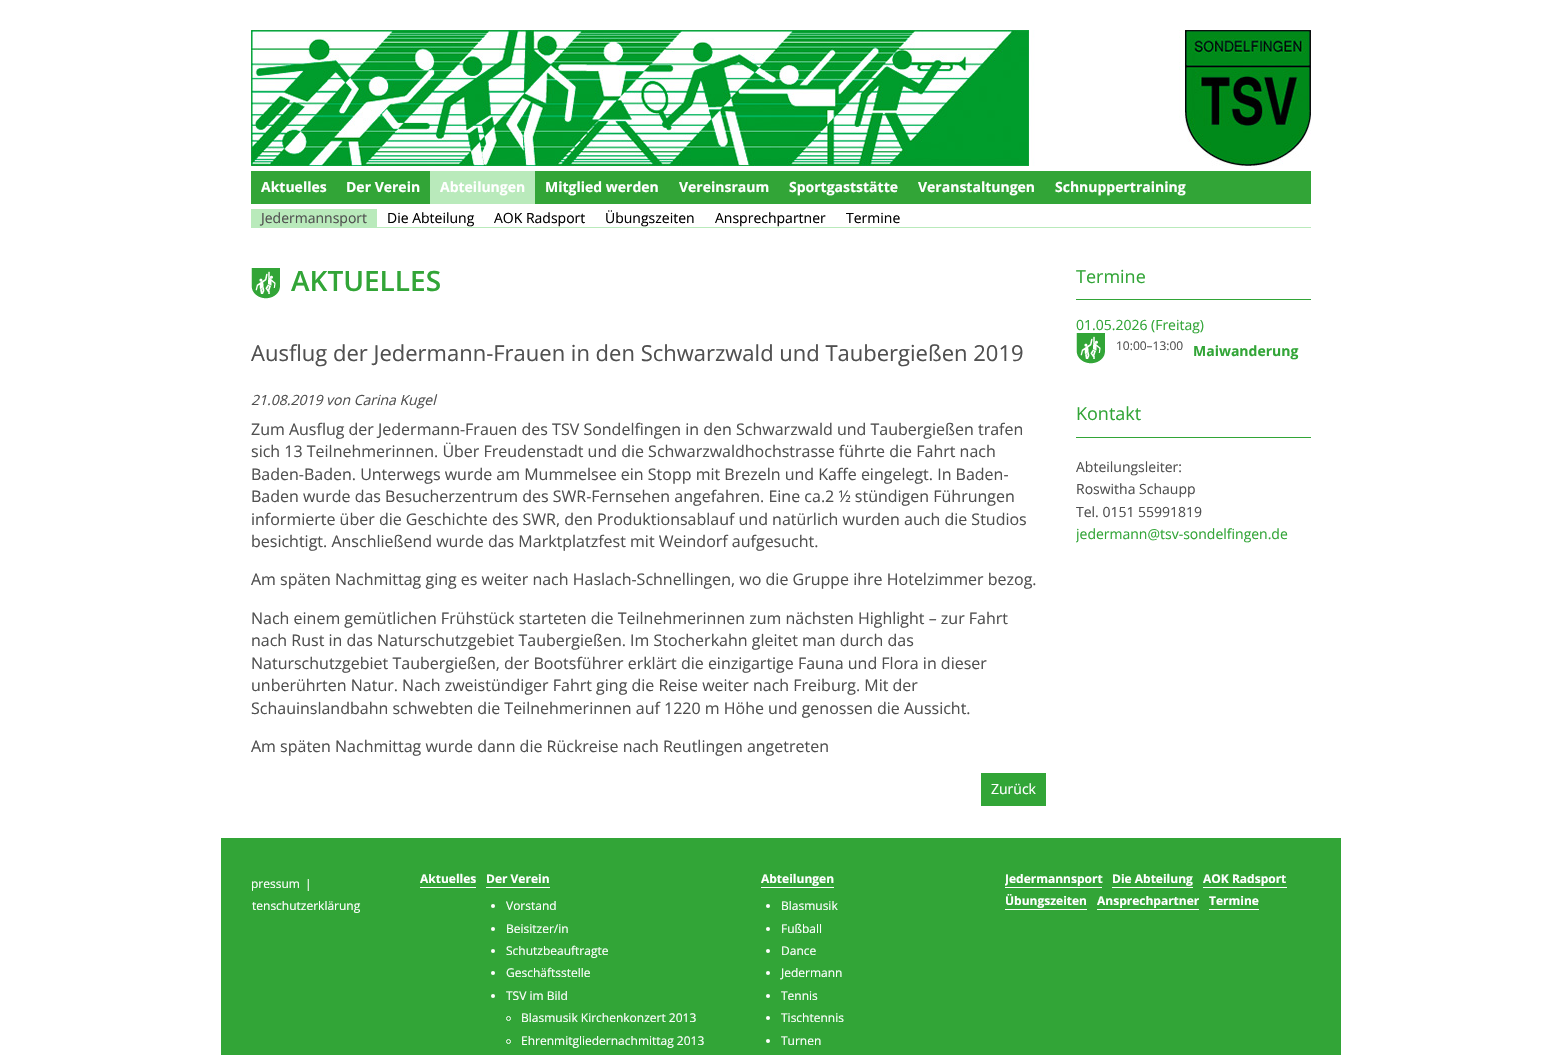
void draw(SkCanvas* canvas) {
    SkPaint paint;
    paint.setAntiAlias(true);
    canvas->clear(0xFFFFFFFF);
    canvas->drawImageRect(SkImages::DeferredFromEncodedData(SkData::MakeFromFileName("img1.png")), SkRect::MakeXYWH(251, 30, 1060, 136), SkSamplingOptions());
    paint.setColor(0xFF32A537);
    canvas->drawRect(SkRect::MakeXYWH(251, 171, 1060, 33), paint);
    SkFont font1(fontMgr->matchFamilyStyle("Open Sans", SkFontStyle::Bold()), 14);
    font1.setSubpixel(true);
    paint.setColor(0xFFFFFFFF);
    canvas->drawString("Aktuelles", 261, 192, font1, paint);
    canvas->drawString("Der Verein", 346, 192, font1, paint);
    paint.setColor(0xFFB9EABB);
    canvas->drawRect(SkRect::MakeXYWH(430, 171, 105, 33), paint);
    paint.setColor(0xFFFFFFFF);
    canvas->drawString("Abteilungen", 440, 192, font1, paint);
    canvas->drawString("Mitglied werden", 545, 192, font1, paint);
    canvas->drawString("Vereinsraum", 679, 192, font1, paint);
    canvas->drawString("Sportgaststätte", 789, 192, font1, paint);
    canvas->drawString("Veranstaltungen", 918, 192, font1, paint);
    canvas->drawString("Schnuppertraining", 1055, 192, font1, paint);
    paint.setColor(0xFFB9EABB);
    canvas->drawRect(SkRect::MakeXYWH(251, 227, 1060, 1), paint);
    canvas->drawRect(SkRect::MakeXYWH(251, 209, 126, 18), paint);
    SkFont font2(fontMgr->matchFamilyStyle("Open Sans", SkFontStyle::Normal()), 14);
    font2.setSubpixel(true);
    paint.setColor(0xFF505050);
    canvas->drawString("Jedermannsport", 261, 223, font2, paint);
    paint.setColor(0xFF000000);
    canvas->drawString("Die Abteilung", 387, 223, font2, paint);
    canvas->drawString("AOK Radsport", 494, 223, font2, paint);
    canvas->drawString("Übungszeiten", 605, 223, font2, paint);
    canvas->drawString("Ansprechpartner", 715, 223, font2, paint);
    canvas->drawString("Termine", 846, 223, font2, paint);
    canvas->drawImageRect(SkImages::DeferredFromEncodedData(SkData::MakeFromFileName("img2.png")), SkRect::MakeXYWH(251, 268, 29, 31), SkSamplingOptions());
    SkFont font3(fontMgr->matchFamilyStyle("Open Sans", SkFontStyle(600, SkFontStyle::kNormal_Width, SkFontStyle::kUpright_Slant)), 28);
    font3.setSubpixel(true);
    paint.setColor(0xFF32A537);
    canvas->drawString("AKTUELLES", 291, 291, font3, paint);
    SkFont font4(fontMgr->matchFamilyStyle("Open Sans", SkFontStyle::Normal()), 22);
    font4.setSubpixel(true);
    paint.setColor(0xFF505050);
    canvas->drawString("Ausflug der Jedermann-Frauen in den Schwarzwald und Taubergießen 2019", 251, 361, font4, paint);
    SkFont font5(fontMgr->matchFamilyStyle("Open Sans", SkFontStyle::Italic()), 14);
    font5.setSubpixel(true);
    canvas->drawString("21.08.2019 von Carina Kugel", 251, 405, font5, paint);
    SkFont font6(fontMgr->matchFamilyStyle("Open Sans", SkFontStyle::Normal()), 16);
    font6.setSubpixel(true);
    canvas->drawString("Zum Ausflug der Jedermann-Frauen des TSV Sondelfingen in den Schwarzwald und Taubergießen trafen", 251, 435, font6, paint);
    canvas->drawString("sich 13 Teilnehmerinnen. Über Freudenstadt und die Schwarzwaldhochstrasse führte die Fahrt nach", 251, 457, font6, paint);
    canvas->drawString("Baden-Baden. Unterwegs wurde am Mummelsee ein Stopp mit Brezeln und Kaffe eingelegt. In Baden-", 251, 480, font6, paint);
    canvas->drawString("Baden wurde das Besucherzentrum des SWR-Fernsehen angefahren. Eine ca.2 ½ stündigen Führungen", 251, 502, font6, paint);
    canvas->drawString("informierte über die Geschichte des SWR, den Produktionsablauf und natürlich wurden auch die Studios", 251, 525, font6, paint);
    canvas->drawString("besichtigt. Anschließend wurde das Marktplatzfest mit Weindorf aufgesucht.", 251, 547, font6, paint);
    canvas->drawString("Am späten Nachmittag ging es weiter nach Haslach-Schnellingen, wo die Gruppe ihre Hotelzimmer bezog.", 251, 585, font6, paint);
    canvas->drawString("Nach einem gemütlichen Frühstück starteten die Teilnehmerinnen zum nächsten Highlight – zur Fahrt", 251, 624, font6, paint);
    canvas->drawString("nach Rust in das Naturschutzgebiet Taubergießen. Im Stocherkahn gleitet man durch das", 251, 646, font6, paint);
    canvas->drawString("Naturschutzgebiet Taubergießen, der Bootsführer erklärt die einzigartige Fauna und Flora in dieser", 251, 669, font6, paint);
    canvas->drawString("unberührten Natur. Nach zweistündiger Fahrt ging die Reise weiter nach Freiburg. Mit der", 251, 691, font6, paint);
    canvas->drawString("Schauinslandbahn schwebten die Teilnehmerinnen auf 1220 m Höhe und genossen die Aussicht.", 251, 714, font6, paint);
    canvas->drawString("Am späten Nachmittag wurde dann die Rückreise nach Reutlingen angetreten", 251, 752, font6, paint);
    paint.setColor(0xFF32A537);
    canvas->drawRect(SkRect::MakeXYWH(981, 773, 65, 33), paint);
    paint.setColor(0xFFFFFFFF);
    canvas->drawString("Zurück", 991, 794, font2, paint);
    paint.setColor(0xFF32A537);
    canvas->drawRect(SkRect::MakeXYWH(1076, 299, 235, 1), paint);
    SkFont font7(fontMgr->matchFamilyStyle("Open Sans", SkFontStyle::Normal()), 18);
    font7.setSubpixel(true);
    canvas->drawString("Termine", 1076, 283, font7, paint);
    canvas->drawString("01.05.2026 (Freitag)", 1076, 330, font2, paint);
    canvas->drawImageRect(SkImages::DeferredFromEncodedData(SkData::MakeFromFileName("img2.png")), SkRect::MakeXYWH(1076, 333, 29, 31), SkSamplingOptions());
    SkFont font8(fontMgr->matchFamilyStyle("Open Sans", SkFontStyle::Normal()), 12);
    font8.setSubpixel(true);
    paint.setColor(0xFF505050);
    canvas->drawString("10:00–13:00", 1116, 350, font8, paint);
    paint.setColor(0xFF32A537);
    canvas->drawString("Maiwanderung", 1193, 356, font1, paint);
    canvas->drawRect(SkRect::MakeXYWH(1076, 437, 235, 1), paint);
    canvas->drawString("Kontakt", 1076, 420, font7, paint);
    paint.setColor(0xFF505050);
    canvas->drawString("Abteilungsleiter:", 1076, 472, font2, paint);
    canvas->drawString("Roswitha Schaupp", 1076, 494, font2, paint);
    canvas->drawString("Tel. 0151 55991819", 1076, 517, font2, paint);
    canvas->save();
    canvas->clipRect(SkRect::MakeXYWH(1076, 384, 235, 176));
    paint.setColor(0xFF32A537);
    canvas->drawString("jedermann@tsv-sondelfingen.de", 1076, 539, font2, paint);
    canvas->restore();
    canvas->drawRect(SkRect::MakeXYWH(221, 838, 1120, 217), paint);
    paint.setColor(0xFFFFFFFF);
    canvas->drawString("pressum", 251, 888, font8, paint);
    canvas->drawString("|", 305, 888, font8, paint);
    canvas->drawString("tenschutzerklärung", 252, 910, font8, paint);
    SkFont font9(fontMgr->matchFamilyStyle("Open Sans", SkFontStyle::Bold()), 12);
    font9.setSubpixel(true);
    canvas->drawString("Aktuelles", 420, 883, font9, paint);
    canvas->drawRect(SkRect::MakeXYWH(420, 887, 56, 1), paint);
    canvas->drawString("Der Verein", 486, 883, font9, paint);
    canvas->drawRect(SkRect::MakeXYWH(486, 887, 64, 1), paint);
    canvas->drawCircle(493, 906, 2, paint);
    canvas->drawString("Vorstand", 506, 910, font8, paint);
    canvas->drawCircle(493, 929, 2, paint);
    canvas->drawString("Beisitzer/in", 506, 933, font8, paint);
    canvas->drawCircle(493, 951, 2, paint);
    canvas->drawString("Schutzbeauftragte", 506, 955, font8, paint);
    canvas->drawCircle(493, 973, 2, paint);
    canvas->drawString("Geschäftsstelle", 506, 977, font8, paint);
    canvas->drawCircle(493, 996, 2, paint);
    canvas->drawString("TSV im Bild", 506, 1000, font8, paint);
    paint.setStyle(SkPaint::kStroke_Style);
    paint.setStrokeWidth(1);
    canvas->drawCircle(508.5f, 1018.5f, 2, paint);
    paint.setStyle(SkPaint::kFill_Style);
    canvas->drawString("Blasmusik Kirchenkonzert 2013", 521, 1022, font8, paint);
    paint.setStyle(SkPaint::kStroke_Style);
    canvas->drawCircle(508.5f, 1041.5f, 2, paint);
    paint.setStyle(SkPaint::kFill_Style);
    canvas->drawString("Ehrenmitgliedernachmittag 2013", 521, 1045, font8, paint);
    canvas->drawString("Abteilungen", 761, 883, font9, paint);
    canvas->drawRect(SkRect::MakeXYWH(761, 887, 73, 1), paint);
    canvas->drawCircle(768, 906, 2, paint);
    canvas->drawString("Blasmusik", 781, 910, font8, paint);
    canvas->drawCircle(768, 929, 2, paint);
    canvas->drawString("Fußball", 781, 933, font8, paint);
    canvas->drawCircle(768, 951, 2, paint);
    canvas->drawString("Dance", 781, 955, font8, paint);
    canvas->drawCircle(768, 973, 2, paint);
    canvas->drawString("Jedermann", 781, 977, font8, paint);
    canvas->drawCircle(768, 996, 2, paint);
    canvas->drawString("Tennis", 781, 1000, font8, paint);
    canvas->drawCircle(768, 1018, 2, paint);
    canvas->drawString("Tischtennis", 781, 1022, font8, paint);
    canvas->drawCircle(768, 1041, 2, paint);
    canvas->drawString("Turnen", 781, 1045, font8, paint);
    canvas->save();
    canvas->clipRect(SkRect::MakeXYWH(1005, 868, 306, 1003));
    canvas->drawString("Jedermannsport", 1005, 883, font9, paint);
    canvas->restore();
    canvas->drawRect(SkRect::MakeXYWH(1005, 887, 97, 1), paint);
    canvas->drawString("Die Abteilung", 1112, 883, font9, paint);
    canvas->drawRect(SkRect::MakeXYWH(1112, 887, 81, 1), paint);
    canvas->drawString("AOK Radsport", 1203, 883, font9, paint);
    canvas->drawRect(SkRect::MakeXYWH(1203, 887, 84, 1), paint);
    canvas->drawString("Übungszeiten", 1005, 905, font9, paint);
    canvas->drawRect(SkRect::MakeXYWH(1005, 909, 82, 1), paint);
    canvas->drawString("Ansprechpartner", 1097, 905, font9, paint);
    canvas->drawRect(SkRect::MakeXYWH(1097, 909, 102, 1), paint);
    canvas->drawString("Termine", 1209, 905, font9, paint);
    canvas->drawRect(SkRect::MakeXYWH(1209, 909, 50, 1), paint);
}
